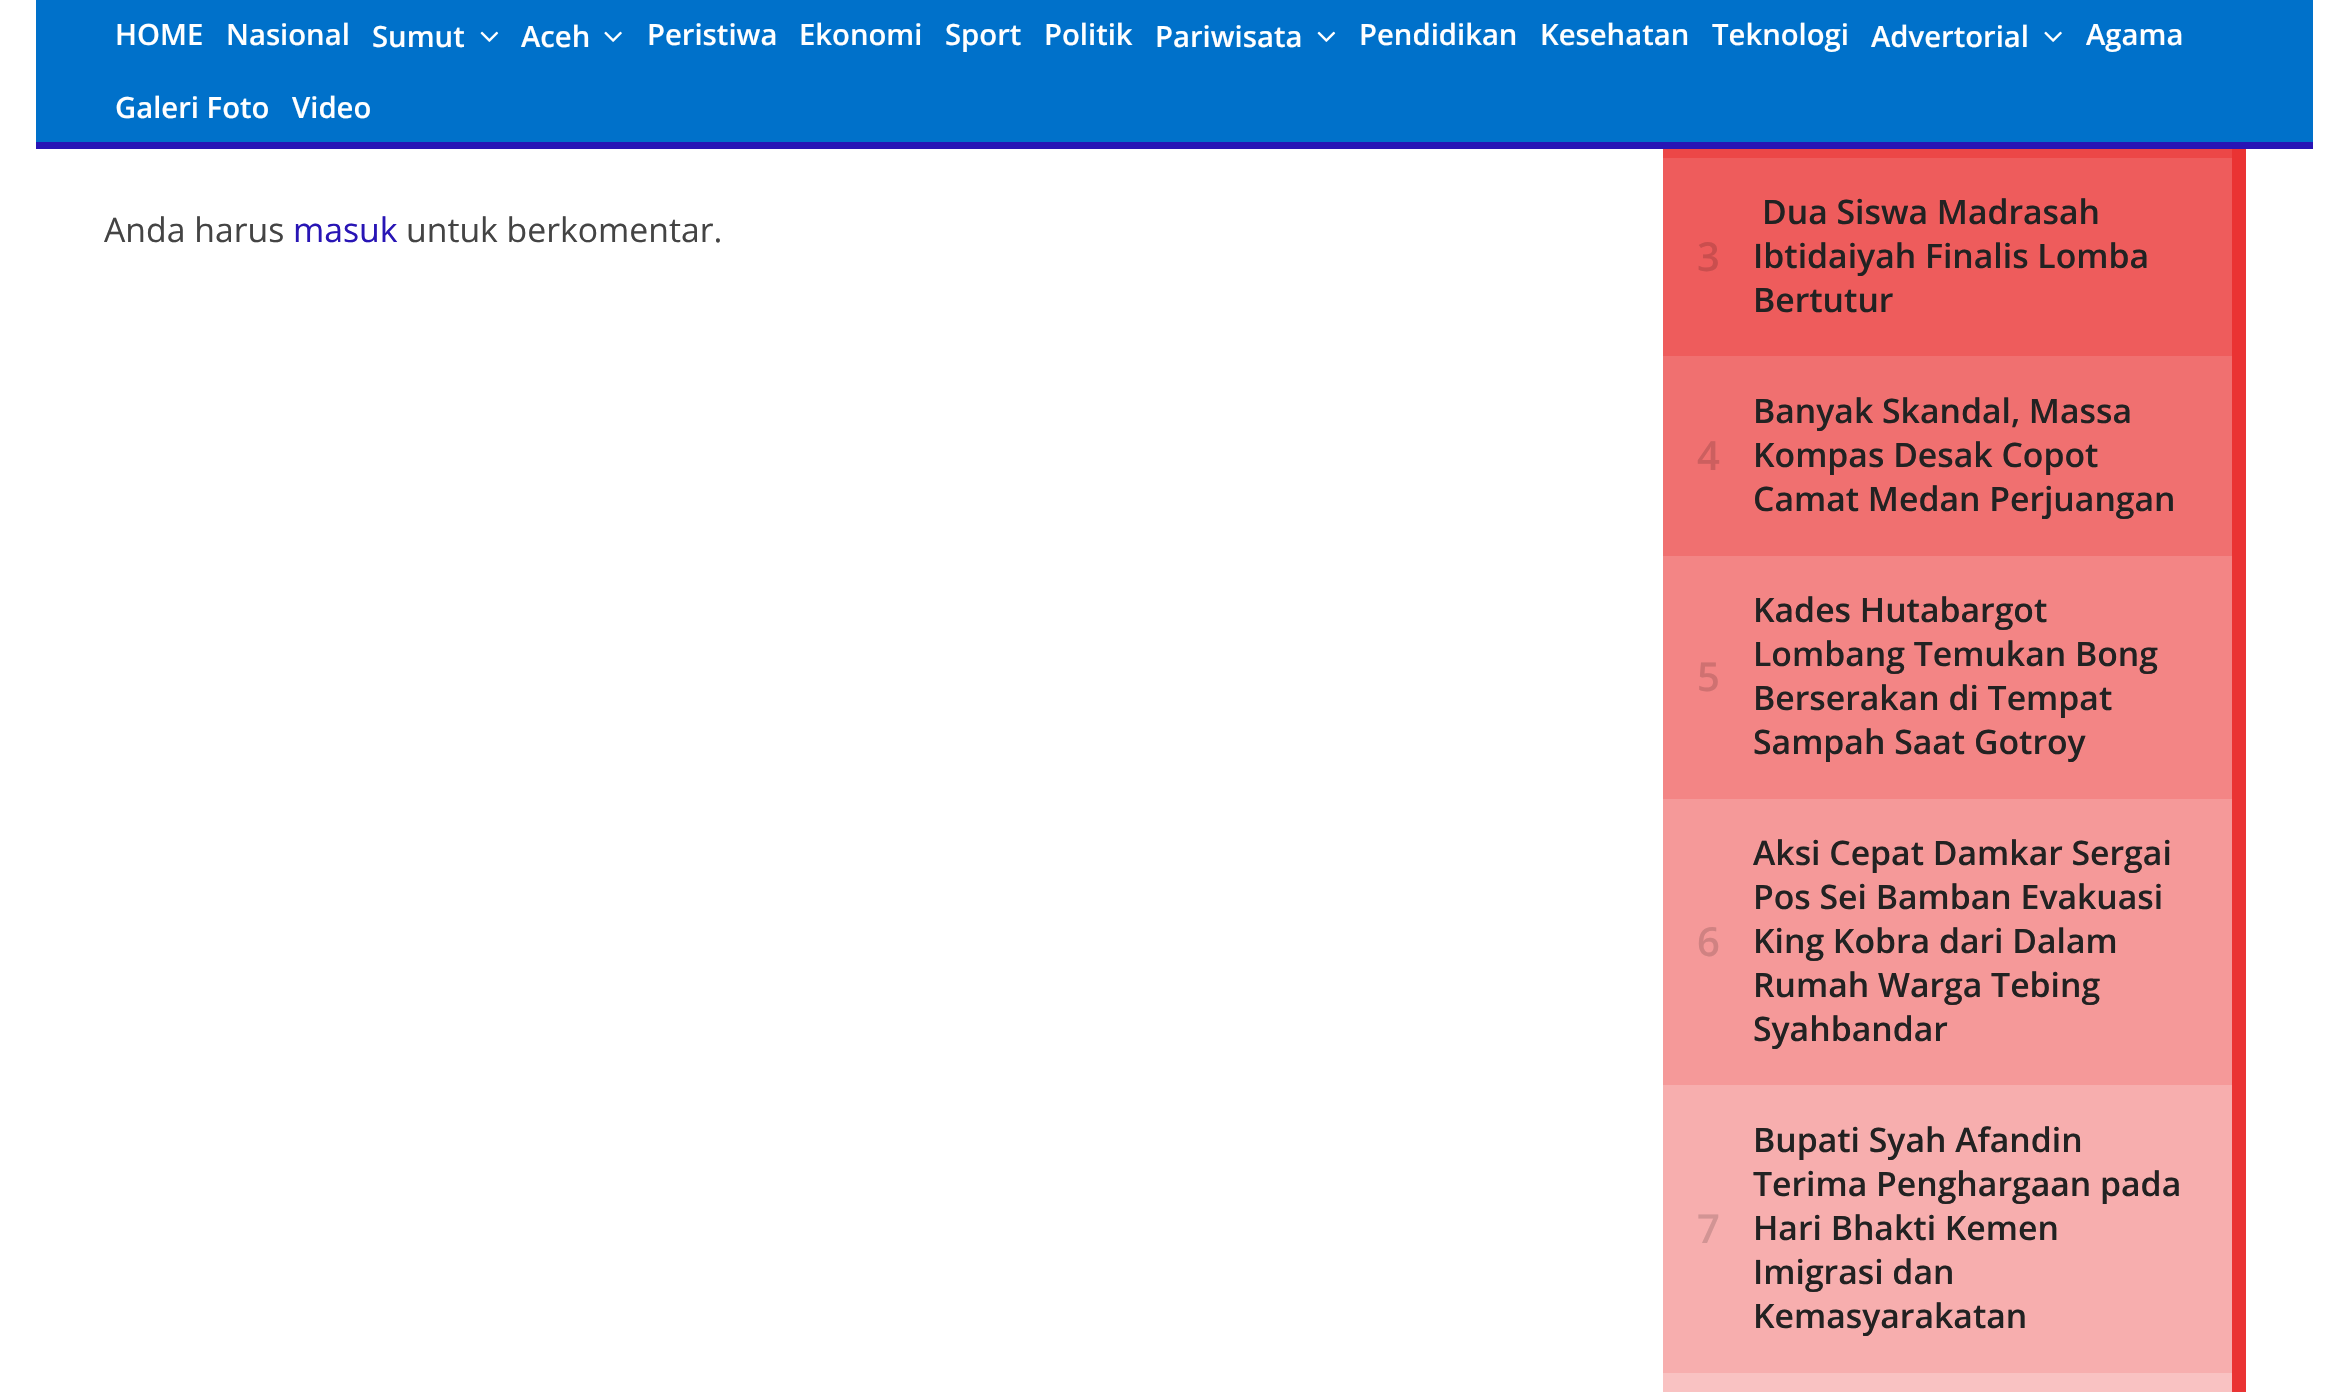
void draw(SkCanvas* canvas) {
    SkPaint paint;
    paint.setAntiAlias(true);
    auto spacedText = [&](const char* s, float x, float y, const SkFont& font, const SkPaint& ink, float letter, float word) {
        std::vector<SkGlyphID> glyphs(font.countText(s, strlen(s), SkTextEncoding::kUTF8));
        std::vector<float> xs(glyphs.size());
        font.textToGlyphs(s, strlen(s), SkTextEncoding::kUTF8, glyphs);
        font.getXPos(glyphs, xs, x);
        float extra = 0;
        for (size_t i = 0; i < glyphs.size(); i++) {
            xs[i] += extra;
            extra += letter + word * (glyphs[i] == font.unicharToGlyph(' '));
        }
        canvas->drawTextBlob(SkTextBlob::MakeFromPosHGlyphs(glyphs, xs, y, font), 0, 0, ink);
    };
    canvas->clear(0xFFFFFFFF);
    paint.setColor(0xFF0071CA);
    canvas->drawRect(SkRect::MakeXYWH(36, 0, 2277, 142), paint);
    paint.setColor(0xFF2815B5);
    canvas->drawRect(SkRect::MakeXYWH(36, 142, 2277, 7), paint);
    SkFont font1(fontMgr->matchFamilyStyle("Open Sans", SkFontStyle(600, SkFontStyle::kNormal_Width, SkFontStyle::kUpright_Slant)), 29.25f);
    font1.setSubpixel(true);
    paint.setColor(0xFFFFFFFF);
    canvas->drawString("HOME", 115, 45, font1, paint);
    canvas->drawString("Nasional", 226, 45, font1, paint);
    canvas->drawString("Sumut", 372, 47, font1, paint);
    canvas->drawImageRect(SkImages::DeferredFromEncodedData(SkData::MakeFromFileName("img1.png")), SkRect::MakeXYWH(480, 31, 19, 11), SkSamplingOptions());
    canvas->drawString("Aceh", 521, 47, font1, paint);
    canvas->drawImageRect(SkImages::DeferredFromEncodedData(SkData::MakeFromFileName("img2.png")), SkRect::MakeXYWH(604, 31, 18, 11), SkSamplingOptions());
    canvas->drawString("Peristiwa", 647, 45, font1, paint);
    canvas->drawString("Ekonomi", 799, 45, font1, paint);
    canvas->drawString("Sport", 945, 45, font1, paint);
    canvas->drawString("Politik", 1044, 45, font1, paint);
    canvas->drawString("Pariwisata", 1155, 47, font1, paint);
    canvas->drawImageRect(SkImages::DeferredFromEncodedData(SkData::MakeFromFileName("img1.png")), SkRect::MakeXYWH(1317, 31, 19, 11), SkSamplingOptions());
    canvas->drawString("Pendidikan", 1359, 45, font1, paint);
    canvas->drawString("Kesehatan", 1540, 45, font1, paint);
    canvas->drawString("Teknologi", 1712, 45, font1, paint);
    canvas->drawString("Advertorial", 1871, 47, font1, paint);
    canvas->drawImageRect(SkImages::DeferredFromEncodedData(SkData::MakeFromFileName("img2.png")), SkRect::MakeXYWH(2044, 31, 18, 11), SkSamplingOptions());
    canvas->drawString("Agama", 2086, 45, font1, paint);
    canvas->drawString("Galeri Foto", 115, 118, font1, paint);
    canvas->drawString("Video", 292, 118, font1, paint);
    SkFont font2(fontMgr->matchFamilyStyle("Open Sans", SkFontStyle::Normal()), 33.75f);
    font2.setSubpixel(true);
    paint.setColor(0xFF444444);
    canvas->drawString("Anda harus", 104, 242, font2, paint);
    paint.setColor(0xFF2815B5);
    canvas->drawString("masuk", 293, 242, font2, paint);
    paint.setColor(0xFF444444);
    canvas->drawString("untuk berkomentar.", 406, 242, font2, paint);
    paint.setColor(0xFFEA3333);
    canvas->drawRect(SkRect::MakeXYWH(2232, 149, 14, 1243), paint);
    paint.setColor(0xFFEC4747);
    canvas->drawRect(SkRect::MakeXYWH(1663, 149, 569, 9), paint);
    paint.setColor(0xFFEE5C5C);
    canvas->drawRect(SkRect::MakeXYWH(1663, 158, 569, 198), paint);
    SkFont font3(fontMgr->matchFamilyStyle("Open Sans", SkFontStyle(600, SkFontStyle::kNormal_Width, SkFontStyle::kUpright_Slant)), 40);
    font3.setSubpixel(true);
    paint.setColor(0xFFCA4E4E);
    spacedText("3", 1697, 271, font3, paint, -2, 0);
    SkFont font4(fontMgr->matchFamilyStyle("Open Sans", SkFontStyle(600, SkFontStyle::kNormal_Width, SkFontStyle::kUpright_Slant)), 33.75f);
    font4.setSubpixel(true);
    paint.setColor(0xFF222222);
    canvas->drawString("Dua Siswa Madrasah", 1762, 224, font4, paint);
    canvas->drawString("Ibtidaiyah Finalis Lomba", 1753, 268, font4, paint);
    canvas->drawString("Bertutur", 1753, 312, font4, paint);
    paint.setColor(0xFFF07070);
    canvas->drawRect(SkRect::MakeXYWH(1663, 356, 569, 200), paint);
    paint.setColor(0xFFCC5F5F);
    spacedText("4", 1697, 470, font3, paint, -2, 0);
    paint.setColor(0xFF222222);
    canvas->drawString("Banyak Skandal, Massa", 1753, 423, font4, paint);
    canvas->drawString("Kompas Desak Copot", 1753, 467, font4, paint);
    canvas->drawString("Camat Medan Perjuangan", 1753, 511, font4, paint);
    paint.setColor(0xFFF38585);
    canvas->drawRect(SkRect::MakeXYWH(1663, 556, 569, 243), paint);
    paint.setColor(0xFFCF7171);
    spacedText("5", 1697, 691, font3, paint, -2, 0);
    paint.setColor(0xFF222222);
    canvas->drawString("Kades Hutabargot", 1753, 622, font4, paint);
    canvas->drawString("Lombang Temukan Bong", 1753, 666, font4, paint);
    canvas->drawString("Berserakan di Tempat", 1753, 710, font4, paint);
    canvas->drawString("Sampah Saat Gotroy", 1753, 754, font4, paint);
    paint.setColor(0xFFF59999);
    canvas->drawRect(SkRect::MakeXYWH(1663, 799, 569, 286), paint);
    paint.setColor(0xFFD08282);
    spacedText("6", 1697, 956, font3, paint, -2, 0);
    paint.setColor(0xFF222222);
    canvas->drawString("Aksi Cepat Damkar Sergai", 1753, 865, font4, paint);
    canvas->drawString("Pos Sei Bamban Evakuasi", 1753, 909, font4, paint);
    canvas->drawString("King Kobra dari Dalam", 1753, 953, font4, paint);
    canvas->drawString("Rumah Warga Tebing", 1753, 997, font4, paint);
    canvas->drawString("Syahbandar", 1753, 1041, font4, paint);
    paint.setColor(0xFFF7AEAE);
    canvas->drawRect(SkRect::MakeXYWH(1663, 1085, 569, 288), paint);
    paint.setColor(0xFFD29494);
    spacedText("7", 1697, 1243, font3, paint, -2, 0);
    paint.setColor(0xFF222222);
    canvas->drawString("Bupati Syah Afandin", 1753, 1152, font4, paint);
    canvas->drawString("Terima Penghargaan pada", 1753, 1196, font4, paint);
    canvas->drawString("Hari Bhakti Kemen", 1753, 1240, font4, paint);
    canvas->drawString("Imigrasi dan", 1753, 1284, font4, paint);
    canvas->drawString("Kemasyarakatan", 1753, 1328, font4, paint);
    paint.setColor(0xFFF9C2C2);
    canvas->drawRect(SkRect::MakeXYWH(1663, 1373, 569, 19), paint);
}
